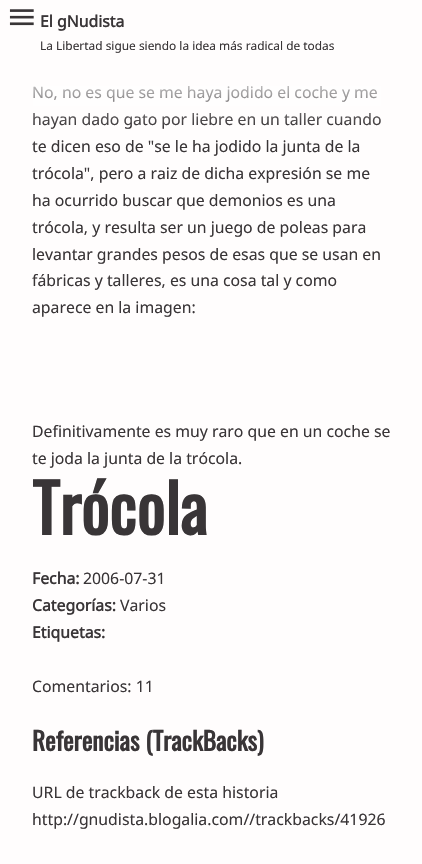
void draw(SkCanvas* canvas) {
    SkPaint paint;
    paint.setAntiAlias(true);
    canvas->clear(0xFFFFFDFD);
    canvas->drawImageRect(SkImages::DeferredFromEncodedData(SkData::MakeFromFileName("img1.png")), SkRect::MakeXYWH(9, 9, 25, 17), SkSamplingOptions());
    SkFont font1(fontMgr->matchFamilyStyle("Noto Sans", SkFontStyle::Normal()), 15.8f);
    font1.setSubpixel(true);
    paint.setColor(0xFF393537);
    canvas->drawString("No, no es que se me haya jodido el coche y me", 32, 98, font1, paint);
    canvas->drawString("hayan dado gato por liebre en un taller cuando", 32, 125, font1, paint);
    {
        const SkColor colors[] = {0xFFFFFFFF, 0xFFFFFFFF, 0x00FFFFFF};
        const float stops[] = {0, 0.5f, 1};
        const SkPoint ends[] = {{211, 0}, {211, 127}};
        paint.setShader(SkGradientShader::MakeLinear(ends, colors, stops, 3, SkTileMode::kClamp));
        paint.setAlpha(255);
    }
    canvas->drawRect(SkRect::MakeXYWH(33, 86, 348, 40), paint);
    SkFont font2(fontMgr->matchFamilyStyle("Noto Sans", SkFontStyle::Bold()), 15.8f);
    font2.setSubpixel(true);
    paint.setShader(nullptr);
    paint.setColor(0xFF393537);
    canvas->drawString("El gNudista", 40, 27, font2, paint);
    SkFont font3(fontMgr->matchFamilyStyle("Noto Sans", SkFontStyle::Normal()), 11.9f);
    font3.setSubpixel(true);
    canvas->drawString("La Libertad sigue siendo la idea más radical de todas", 40, 50, font3, paint);
    canvas->drawString("te dicen eso de \"se le ha jodido la junta de la", 32, 152, font1, paint);
    canvas->drawString("trócola\", pero a raiz de dicha expresión se me", 32, 179, font1, paint);
    canvas->drawString("ha ocurrido buscar que demonios es una", 32, 206, font1, paint);
    canvas->drawString("trócola, y resulta ser un juego de poleas para", 32, 233, font1, paint);
    canvas->drawString("levantar grandes pesos de esas que se usan en", 32, 260, font1, paint);
    canvas->drawString("fábricas y talleres, es una cosa tal y como", 32, 286, font1, paint);
    canvas->drawString("aparece en la imagen:", 32, 313, font1, paint);
    canvas->drawString("Definitivamente es muy raro que en un coche se", 32, 437, font1, paint);
    canvas->drawString("te joda la junta de la trócola.", 32, 464, font1, paint);
    SkFont font4(fontMgr->matchFamilyStyle("Oswald", SkFontStyle::Bold()), 66.5f);
    font4.setSubpixel(true);
    canvas->drawString("Trócola", 32, 535, font4, paint);
    canvas->drawString("Fecha:", 32, 584, font2, paint);
    canvas->drawString("2006-07-31", 83, 584, font1, paint);
    canvas->drawString("Categorías:", 32, 611, font2, paint);
    canvas->drawString("Varios", 120, 611, font1, paint);
    canvas->drawString("Etiquetas:", 32, 638, font2, paint);
    canvas->drawString("Comentarios: 11", 32, 692, font1, paint);
    SkFont font5(fontMgr->matchFamilyStyle("Oswald", SkFontStyle::Bold()), 25.25f);
    font5.setSubpixel(true);
    canvas->drawString("Referencias (TrackBacks)", 32, 751, font5, paint);
    canvas->drawString("URL de trackback de esta historia", 32, 798, font1, paint);
    canvas->drawString("http://gnudista.blogalia.com//trackbacks/41926", 32, 825, font1, paint);
}
